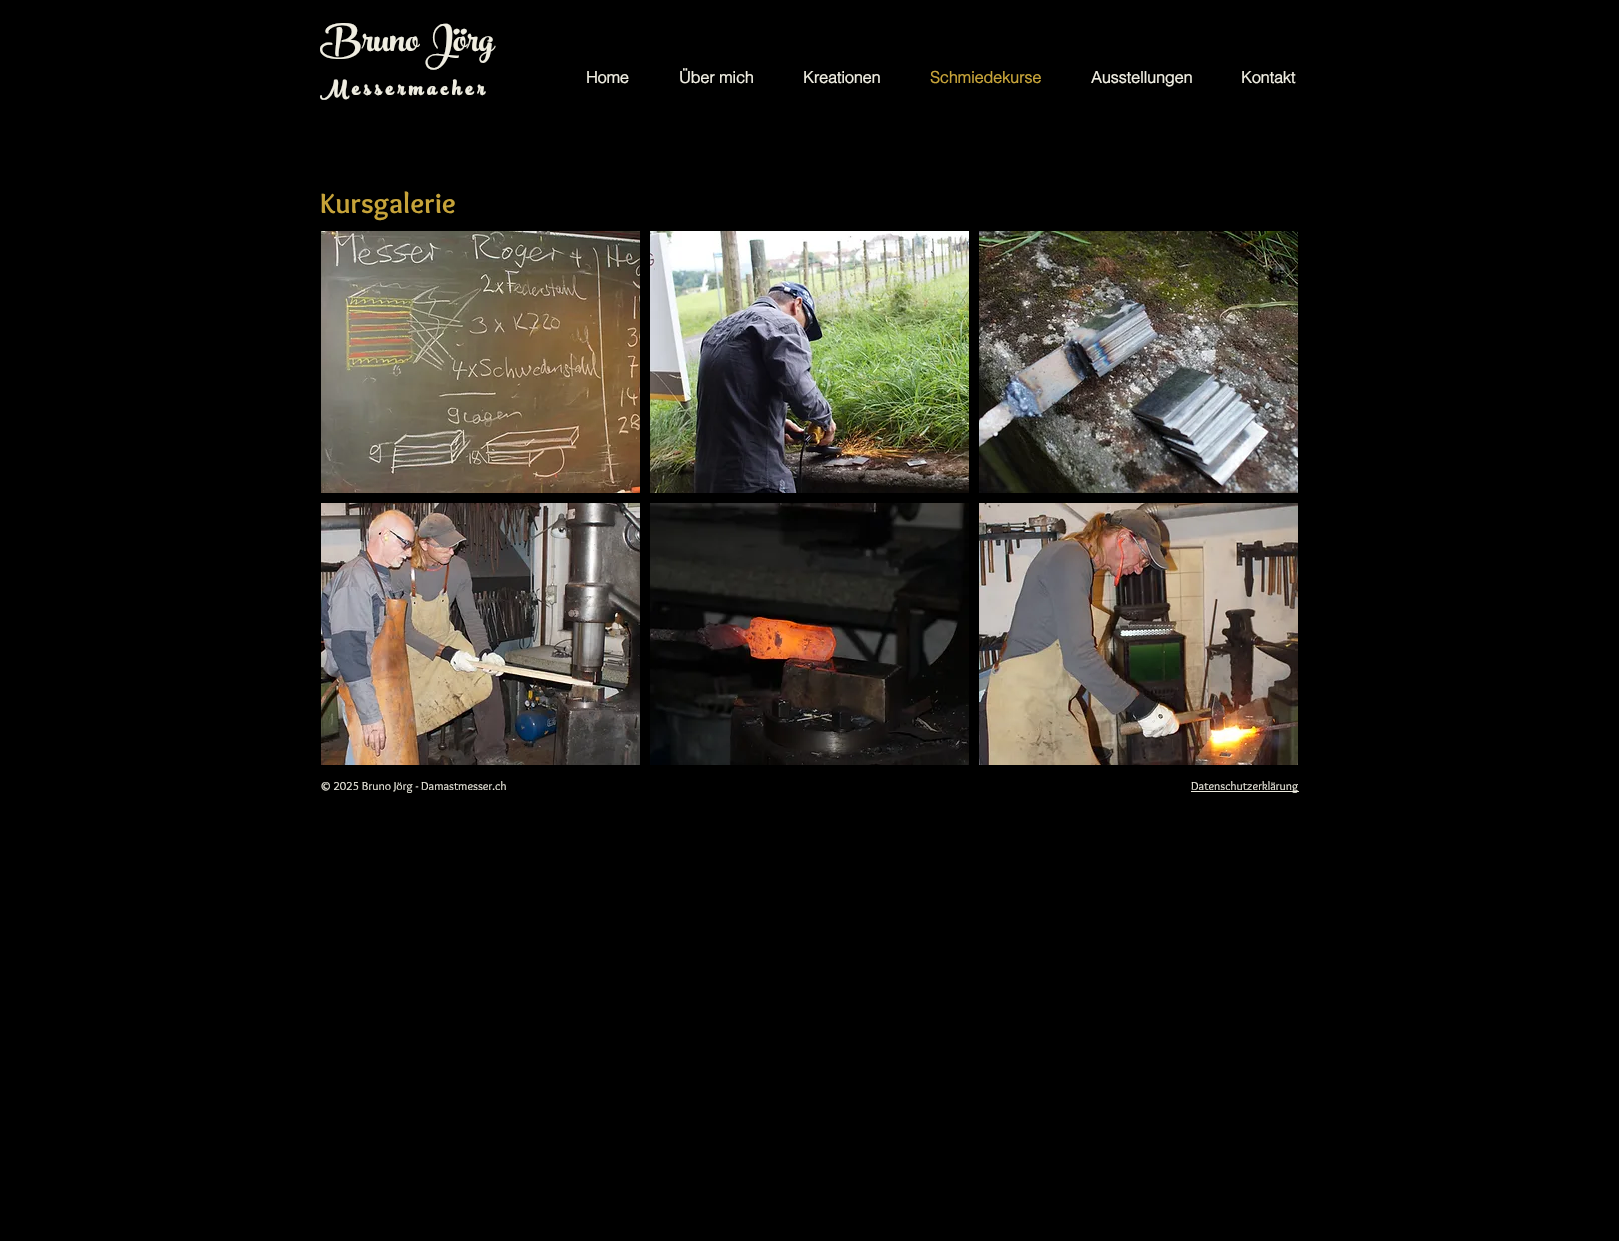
void draw(SkCanvas* canvas) {
    SkPaint paint;
    paint.setAntiAlias(true);
    auto spacedText = [&](const char* s, float x, float y, const SkFont& font, const SkPaint& ink, float letter, float word) {
        std::vector<SkGlyphID> glyphs(font.countText(s, strlen(s), SkTextEncoding::kUTF8));
        std::vector<float> xs(glyphs.size());
        font.textToGlyphs(s, strlen(s), SkTextEncoding::kUTF8, glyphs);
        font.getXPos(glyphs, xs, x);
        float extra = 0;
        for (size_t i = 0; i < glyphs.size(); i++) {
            xs[i] += extra;
            extra += letter + word * (glyphs[i] == font.unicharToGlyph(' '));
        }
        canvas->drawTextBlob(SkTextBlob::MakeFromPosHGlyphs(glyphs, xs, y, font), 0, 0, ink);
    };
    canvas->clear(0xFF000000);
    SkFont font1(fontMgr->matchFamilyStyle("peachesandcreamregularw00", SkFontStyle::Normal()), 56);
    font1.setSubpixel(true);
    paint.setColor(0xFFEFEDE1);
    canvas->drawString("Bruno Jörg", 320, 51, font1, paint);
    SkFont font2(fontMgr->matchFamilyStyle("peachesandcreamregularw00", SkFontStyle::Bold()), 31);
    font2.setSubpixel(true);
    spacedText("Messermacher", 320, 95, font2, paint, 4.6f, 0);
    SkFont font3(fontMgr->matchFamilyStyle("helvetica", SkFontStyle::Bold()), 16);
    font3.setSubpixel(true);
    canvas->drawString("Home", 586, 83, font3, paint);
    canvas->drawString("Über mich", 679, 83, font3, paint);
    canvas->drawString("Kreationen", 803, 83, font3, paint);
    paint.setColor(0xFFC6A339);
    canvas->drawString("Schmiedekurse", 930, 83, font3, paint);
    paint.setColor(0xFFEFEDE1);
    canvas->drawString("Ausstellungen", 1091, 83, font3, paint);
    canvas->drawString("Kontakt", 1241, 83, font3, paint);
    SkFont font4(fontMgr->matchFamilyStyle("Overlock", SkFontStyle::Bold()), 29);
    font4.setSubpixel(true);
    paint.setColor(0xFFC6A339);
    canvas->drawString("Kursgalerie", 320, 213, font4, paint);
    canvas->drawImageRect(SkImages::DeferredFromEncodedData(SkData::MakeFromFileName("img1.png")), SkRect::MakeXYWH(321, 231, 319, 262), SkSamplingOptions());
    canvas->drawImageRect(SkImages::DeferredFromEncodedData(SkData::MakeFromFileName("img2.png")), SkRect::MakeXYWH(650, 231, 319, 262), SkSamplingOptions());
    canvas->drawImageRect(SkImages::DeferredFromEncodedData(SkData::MakeFromFileName("img3.png")), SkRect::MakeXYWH(979, 231, 319, 262), SkSamplingOptions());
    canvas->drawImageRect(SkImages::DeferredFromEncodedData(SkData::MakeFromFileName("img4.png")), SkRect::MakeXYWH(321, 503, 319, 262), SkSamplingOptions());
    canvas->drawImageRect(SkImages::DeferredFromEncodedData(SkData::MakeFromFileName("img5.png")), SkRect::MakeXYWH(650, 503, 319, 262), SkSamplingOptions());
    canvas->drawImageRect(SkImages::DeferredFromEncodedData(SkData::MakeFromFileName("img6.png")), SkRect::MakeXYWH(979, 503, 319, 262), SkSamplingOptions());
    SkFont font5(fontMgr->matchFamilyStyle("Overlock", SkFontStyle::Normal()), 12);
    font5.setSubpixel(true);
    paint.setColor(0xFFEFEDE1);
    canvas->drawString("© 2025 Bruno Jörg - Damastmesser.ch", 320, 790, font5, paint);
    canvas->drawRect(SkRect::MakeXYWH(1191, 791, 108, 1), paint);
    canvas->drawString("Datenschutzerklärung", 1191, 790, font5, paint);
}
